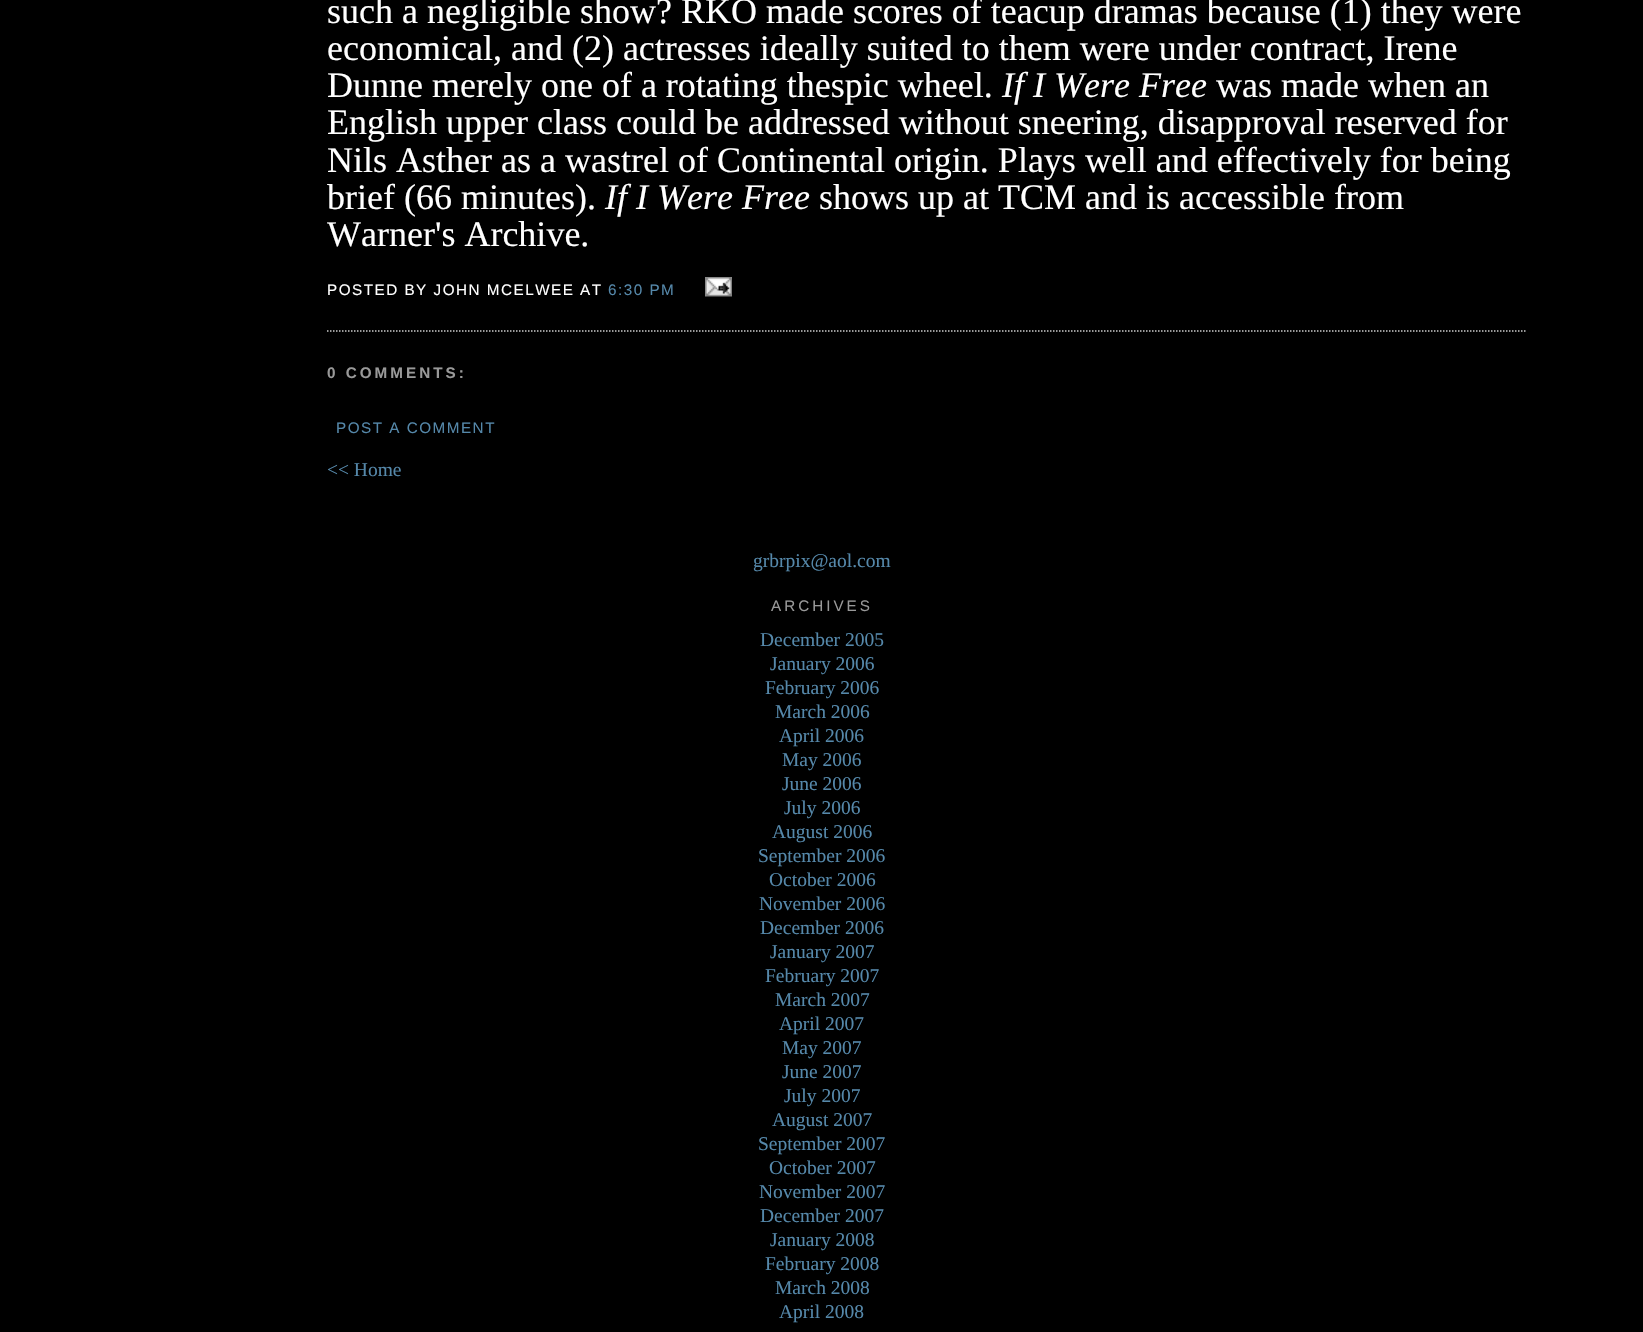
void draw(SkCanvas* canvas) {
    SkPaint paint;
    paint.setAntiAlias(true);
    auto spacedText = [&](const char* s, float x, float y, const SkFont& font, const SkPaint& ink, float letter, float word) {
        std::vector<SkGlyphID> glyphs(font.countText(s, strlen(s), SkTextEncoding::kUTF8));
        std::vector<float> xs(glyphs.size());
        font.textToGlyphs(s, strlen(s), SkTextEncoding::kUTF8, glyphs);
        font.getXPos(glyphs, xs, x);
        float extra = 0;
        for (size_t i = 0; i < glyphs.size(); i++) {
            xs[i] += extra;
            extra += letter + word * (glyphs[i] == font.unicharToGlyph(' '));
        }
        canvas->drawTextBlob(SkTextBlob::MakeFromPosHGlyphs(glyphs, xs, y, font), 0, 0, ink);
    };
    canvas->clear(0xFF000000);
    paint.setStyle(SkPaint::kStroke_Style);
    paint.setStrokeWidth(1.5f);
    paint.setColor(0xFFCCCCCC);
    paint.setPathEffect(SkDashPathEffect::Make({{1.5f, 1.5f}}, 0));
    canvas->drawPath(SkPathBuilder().moveTo(327, 331).lineTo(1527, 331).detach(), paint);
    paint.setPathEffect(nullptr);
    SkFont font1(fontMgr->matchFamilyStyle("Liberation Serif", SkFontStyle::Normal()), 36);
    font1.setSubpixel(true);
    paint.setStyle(SkPaint::kFill_Style);
    paint.setColor(0xFFFFFFFF);
    canvas->drawString("such a negligible show? RKO made scores of teacup dramas because (1) they were", 327, 23, font1, paint);
    canvas->drawString("economical, and (2) actresses ideally suited to them were under contract, Irene", 327, 60, font1, paint);
    canvas->drawString("Dunne merely one of a rotating thespic wheel.", 327, 97, font1, paint);
    SkFont font2(fontMgr->matchFamilyStyle("Liberation Serif", SkFontStyle::Italic()), 36);
    font2.setSubpixel(true);
    canvas->drawString("If I Were Free", 1002, 97, font2, paint);
    canvas->drawString("was made when an", 1216, 97, font1, paint);
    canvas->drawString("English upper class could be addressed without sneering, disapproval reserved for", 327, 134, font1, paint);
    canvas->drawString("Nils Asther as a wastrel of Continental origin. Plays well and effectively for being", 327, 172, font1, paint);
    canvas->drawString("brief (66 minutes).", 327, 209, font1, paint);
    canvas->drawString("If I Were Free", 605, 209, font2, paint);
    canvas->drawString("shows up at TCM and is accessible from", 819, 209, font1, paint);
    canvas->drawString("Warner's Archive.", 327, 246, font1, paint);
    SkFont font3(fontMgr->matchFamilyStyle("Liberation Sans", SkFontStyle::Normal()), 15.25f);
    font3.setSubpixel(true);
    spacedText("POSTED BY JOHN MCELWEE AT", 327, 295, font3, paint, 1.5f, 0);
    paint.setColor(0xFF5588AA);
    spacedText("6:30 PM", 608, 295, font3, paint, 1.5f, 0);
    canvas->drawImageRect(SkImages::DeferredFromEncodedData(SkData::MakeFromFileName("img1.png")), SkRect::MakeXYWH(705, 277, 27, 20), SkSamplingOptions());
    SkFont font4(fontMgr->matchFamilyStyle("Liberation Sans", SkFontStyle::Bold()), 15.25f);
    font4.setSubpixel(true);
    paint.setColor(0xFF999999);
    spacedText("0 COMMENTS:", 327, 378, font4, paint, 3, 0);
    paint.setColor(0xFF5588AA);
    spacedText("POST A COMMENT", 336, 433, font3, paint, 1.5f, 0);
    SkFont font5(fontMgr->matchFamilyStyle("Liberation Serif", SkFontStyle::Normal()), 19.5f);
    font5.setSubpixel(true);
    canvas->drawString("<< Home", 327, 476, font5, paint);
    canvas->drawString("grbrpix@aol.com", 753, 567, font5, paint);
    paint.setColor(0xFF999999);
    spacedText("ARCHIVES", 771, 611, font3, paint, 3, 0);
    paint.setColor(0xFF5588AA);
    canvas->drawString("December 2005", 760, 646, font5, paint);
    canvas->drawString("January 2006", 770, 670, font5, paint);
    canvas->drawString("February 2006", 765, 694, font5, paint);
    canvas->drawString("March 2006", 775, 718, font5, paint);
    canvas->drawString("April 2006", 779, 742, font5, paint);
    canvas->drawString("May 2006", 782, 766, font5, paint);
    canvas->drawString("June 2006", 782, 790, font5, paint);
    canvas->drawString("July 2006", 784, 814, font5, paint);
    canvas->drawString("August 2006", 772, 838, font5, paint);
    canvas->drawString("September 2006", 758, 862, font5, paint);
    canvas->drawString("October 2006", 769, 886, font5, paint);
    canvas->drawString("November 2006", 759, 910, font5, paint);
    canvas->drawString("December 2006", 760, 934, font5, paint);
    canvas->drawString("January 2007", 770, 958, font5, paint);
    canvas->drawString("February 2007", 765, 982, font5, paint);
    canvas->drawString("March 2007", 775, 1006, font5, paint);
    canvas->drawString("April 2007", 779, 1030, font5, paint);
    canvas->drawString("May 2007", 782, 1054, font5, paint);
    canvas->drawString("June 2007", 782, 1078, font5, paint);
    canvas->drawString("July 2007", 784, 1102, font5, paint);
    canvas->drawString("August 2007", 772, 1126, font5, paint);
    canvas->drawString("September 2007", 758, 1150, font5, paint);
    canvas->drawString("October 2007", 769, 1174, font5, paint);
    canvas->drawString("November 2007", 759, 1198, font5, paint);
    canvas->drawString("December 2007", 760, 1222, font5, paint);
    canvas->drawString("January 2008", 770, 1246, font5, paint);
    canvas->drawString("February 2008", 765, 1270, font5, paint);
    canvas->drawString("March 2008", 775, 1294, font5, paint);
    canvas->drawString("April 2008", 779, 1318, font5, paint);
}
